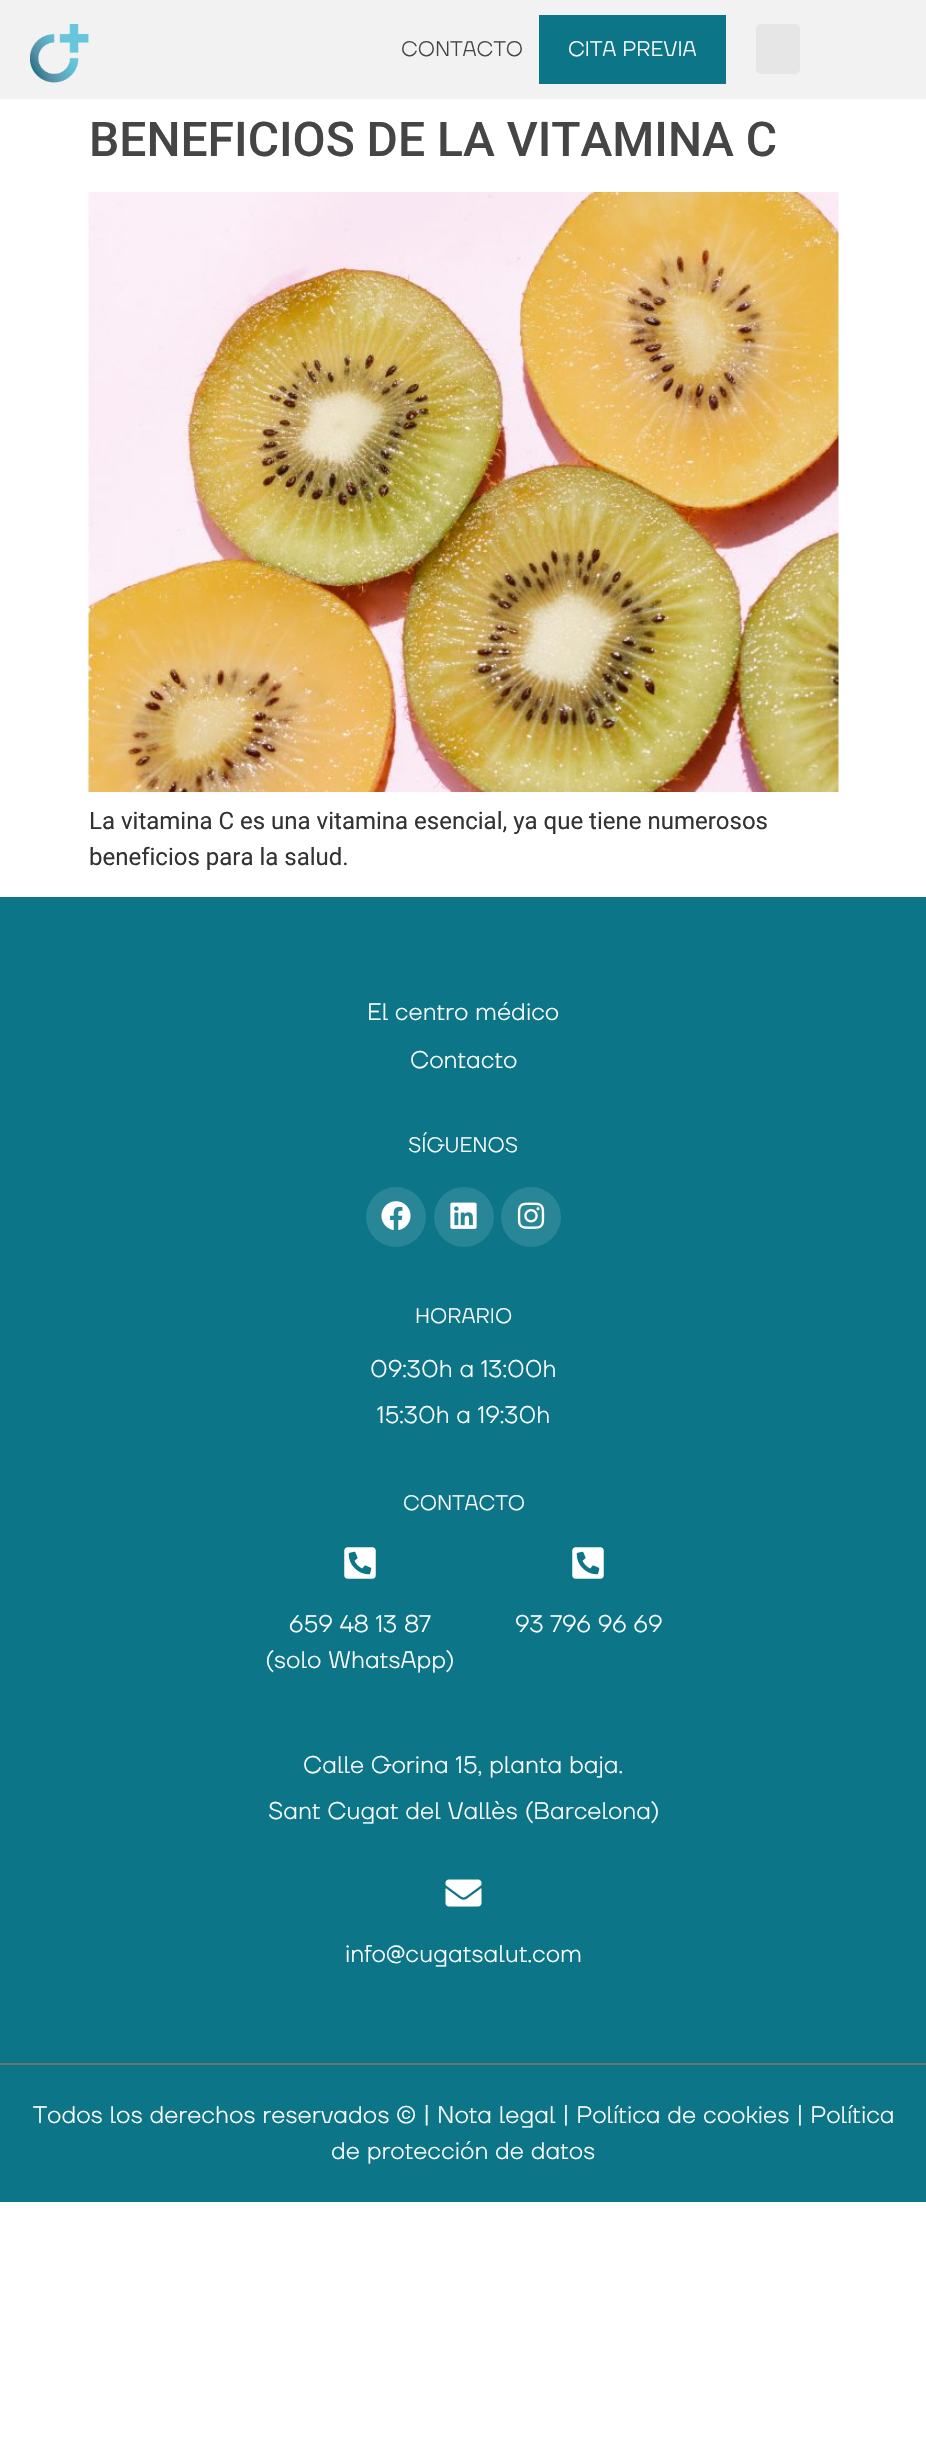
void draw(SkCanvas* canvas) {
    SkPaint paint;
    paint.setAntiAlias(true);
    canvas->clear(0xFFFFFFFF);
    paint.setColor(0xFFF2F2F2);
    canvas->drawRect(SkRect::MakeXYWH(0, 0, 926, 99), paint);
    canvas->drawImageRect(SkImages::DeferredFromEncodedData(SkData::MakeFromFileName("img1.png")), SkRect::MakeXYWH(30, 24, 59, 59), SkSamplingOptions());
    SkFont font1(fontMgr->matchFamilyStyle("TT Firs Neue", SkFontStyle(300, SkFontStyle::kNormal_Width, SkFontStyle::kUpright_Slant)), 21);
    font1.setSubpixel(true);
    paint.setColor(0xFF454545);
    canvas->drawString("CONTACTO", 401, 56, font1, paint);
    paint.setColor(0xFF0C7588);
    canvas->drawRect(SkRect::MakeXYWH(539, 15, 187, 69), paint);
    paint.setColor(0xFFFFFFFF);
    canvas->drawString("CITA PREVIA", 568, 56, font1, paint);
    paint.setColor(0xFFE6E6E6);
    canvas->drawRoundRect(SkRect::MakeXYWH(756, 24, 44, 50), 5, 5, paint);
    SkFont font2(fontMgr->matchFamilyStyle("Roboto", SkFontStyle(500, SkFontStyle::kNormal_Width, SkFontStyle::kUpright_Slant)), 48);
    font2.setSubpixel(true);
    paint.setColor(0xFF454545);
    canvas->drawString("BENEFICIOS DE LA VITAMINA C", 89, 156, font2, paint);
    canvas->drawImageRect(SkImages::DeferredFromEncodedData(SkData::MakeFromFileName("img2.png")), SkRect::MakeXYWH(88, 192, 751, 600), SkSamplingOptions());
    SkFont font3(fontMgr->matchFamilyStyle("Roboto", SkFontStyle::Normal()), 24);
    font3.setSubpixel(true);
    paint.setColor(0xFF333333);
    canvas->drawString("La vitamina C es una vitamina esencial, ya que tiene numerosos", 89, 829, font3, paint);
    canvas->drawString("beneficios para la salud.", 89, 865, font3, paint);
    paint.setColor(0xFF0C7588);
    canvas->drawRect(SkRect::MakeXYWH(0, 897, 926, 1166), paint);
    SkFont font4(fontMgr->matchFamilyStyle("TT Firs Neue", SkFontStyle(300, SkFontStyle::kNormal_Width, SkFontStyle::kUpright_Slant)), 24);
    font4.setSubpixel(true);
    paint.setColor(0xFFFFFFFF);
    canvas->drawString("El centro médico", 367, 1020, font4, paint);
    canvas->drawString("Contacto", 410, 1068, font4, paint);
    canvas->drawString("SÍGUENOS", 408, 1152, font1, paint);
    paint.setColor(0xFF298696);
    canvas->drawCircle(396, 1217, 30, paint);
    canvas->drawImageRect(SkImages::DeferredFromEncodedData(SkData::MakeFromFileName("img3.png")), SkRect::MakeXYWH(381, 1201, 30, 30), SkSamplingOptions());
    canvas->drawCircle(464, 1217, 30, paint);
    canvas->drawImageRect(SkImages::DeferredFromEncodedData(SkData::MakeFromFileName("img4.png")), SkRect::MakeXYWH(450, 1202, 27, 27), SkSamplingOptions());
    canvas->drawCircle(531, 1217, 30, paint);
    canvas->drawImageRect(SkImages::DeferredFromEncodedData(SkData::MakeFromFileName("img5.png")), SkRect::MakeXYWH(517, 1202, 28, 27), SkSamplingOptions());
    paint.setColor(0xFFFFFFFF);
    canvas->drawString("HORARIO", 415, 1323, font1, paint);
    canvas->drawString("09:30h a 13:00h", 370, 1377, font4, paint);
    canvas->drawString("15:30h a 19:30h", 377, 1423, font4, paint);
    canvas->drawString("CONTACTO", 403, 1510, font1, paint);
    canvas->drawImageRect(SkImages::DeferredFromEncodedData(SkData::MakeFromFileName("img6.png")), SkRect::MakeXYWH(344, 1547, 32, 32), SkSamplingOptions());
    canvas->drawString("659 48 13 87", 289, 1632, font4, paint);
    canvas->drawString("(solo WhatsApp)", 265, 1668, font4, paint);
    canvas->drawImageRect(SkImages::DeferredFromEncodedData(SkData::MakeFromFileName("img6.png")), SkRect::MakeXYWH(572, 1547, 32, 32), SkSamplingOptions());
    canvas->drawString("93 796 96 69", 515, 1632, font4, paint);
    canvas->drawString("Calle Gorina 15, planta baja.", 303, 1773, font4, paint);
    canvas->drawString("Sant Cugat del Vallès (Barcelona)", 268, 1819, font4, paint);
    canvas->drawImageRect(SkImages::DeferredFromEncodedData(SkData::MakeFromFileName("img7.png")), SkRect::MakeXYWH(445, 1879, 37, 28), SkSamplingOptions());
    canvas->drawString("info@cugatsalut.com", 345, 1962, font4, paint);
    paint.setColor(0xFF0C7588);
    canvas->drawRect(SkRect::MakeXYWH(0, 2065, 926, 137), paint);
    paint.setColor(0xFF707070);
    canvas->drawRect(SkRect::MakeXYWH(0, 2063, 926, 2), paint);
    paint.setColor(0xFFFFFFFF);
    canvas->drawString("Todos los derechos reservados © | Nota legal | Política de cookies | Política", 33, 2123, font4, paint);
    canvas->drawString("de protección de datos", 331, 2159, font4, paint);
}
